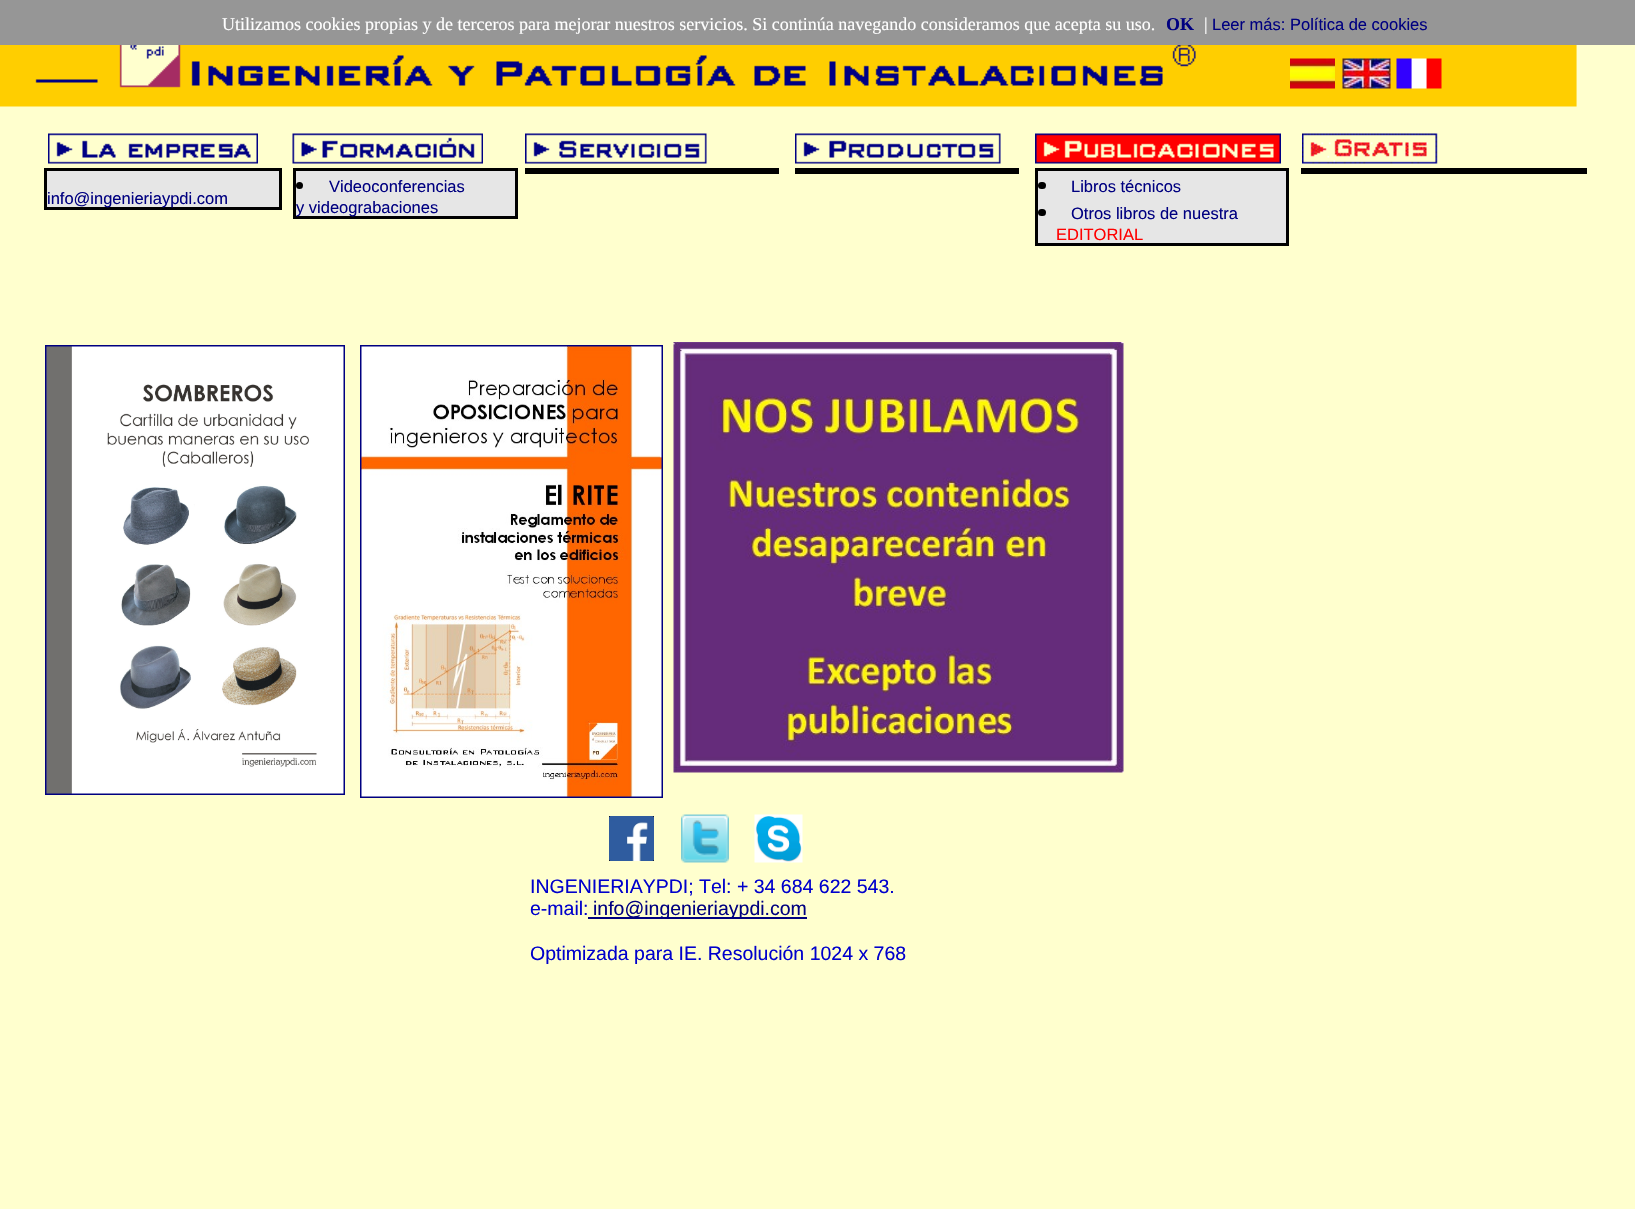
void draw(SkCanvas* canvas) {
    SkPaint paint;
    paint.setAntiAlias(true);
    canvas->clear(0xFFFFFFFF);
    canvas->drawImageRect(SkImages::DeferredFromEncodedData(SkData::MakeFromFileName("img1.png")), SkRect::MakeXYWH(0, 45, 1635, 1164), SkSamplingOptions());
    paint.setColor(0xFF969696);
    canvas->drawRect(SkRect::MakeXYWH(0, 0, 1635, 45), paint);
    SkFont font1(fontMgr->matchFamilyStyle("Liberation Serif", SkFontStyle::Normal()), 18);
    font1.setSubpixel(true);
    paint.setColor(0xFFFFFFFF);
    canvas->drawString("Utilizamos cookies propias y de terceros para mejorar nuestros servicios. Si continúa navegando consideramos que acepta su uso.", 222, 30, font1, paint);
    SkFont font2(fontMgr->matchFamilyStyle("Liberation Serif", SkFontStyle::Bold()), 18);
    font2.setSubpixel(true);
    paint.setColor(0xFF000080);
    canvas->drawString("OK", 1166, 30, font2, paint);
    paint.setColor(0xFFFFFFFF);
    canvas->drawString("|", 1204, 30, font1, paint);
    SkFont font3(fontMgr->matchFamilyStyle("Liberation Sans", SkFontStyle::Normal()), 16.5f);
    font3.setSubpixel(true);
    paint.setColor(0xFF000080);
    canvas->drawString("Leer más: Política de cookies", 1212, 30, font3, paint);
    canvas->drawImageRect(SkImages::DeferredFromEncodedData(SkData::MakeFromFileName("img2.png")), SkRect::MakeXYWH(1290, 58, 45, 31), SkSamplingOptions());
    canvas->drawImageRect(SkImages::DeferredFromEncodedData(SkData::MakeFromFileName("img3.png")), SkRect::MakeXYWH(1342, 58, 49, 31), SkSamplingOptions());
    canvas->drawImageRect(SkImages::DeferredFromEncodedData(SkData::MakeFromFileName("img4.png")), SkRect::MakeXYWH(1396, 58, 46, 31), SkSamplingOptions());
    canvas->drawImageRect(SkImages::DeferredFromEncodedData(SkData::MakeFromFileName("img5.png")), SkRect::MakeXYWH(48, 133, 210, 31), SkSamplingOptions());
    canvas->drawImageRect(SkImages::DeferredFromEncodedData(SkData::MakeFromFileName("img6.png")), SkRect::MakeXYWH(292, 133, 191, 31), SkSamplingOptions());
    canvas->drawImageRect(SkImages::DeferredFromEncodedData(SkData::MakeFromFileName("img7.png")), SkRect::MakeXYWH(525, 133, 182, 31), SkSamplingOptions());
    canvas->drawImageRect(SkImages::DeferredFromEncodedData(SkData::MakeFromFileName("img8.png")), SkRect::MakeXYWH(795, 133, 206, 31), SkSamplingOptions());
    canvas->drawImageRect(SkImages::DeferredFromEncodedData(SkData::MakeFromFileName("img9.png")), SkRect::MakeXYWH(1035, 133, 246, 31), SkSamplingOptions());
    canvas->drawImageRect(SkImages::DeferredFromEncodedData(SkData::MakeFromFileName("img10.png")), SkRect::MakeXYWH(1302, 133, 136, 31), SkSamplingOptions());
    paint.setColor(0xFF000000);
    canvas->drawRect(SkRect::MakeXYWH(525, 168, 254, 6), paint);
    canvas->drawRect(SkRect::MakeXYWH(795, 168, 224, 6), paint);
    canvas->drawRect(SkRect::MakeXYWH(1301, 168, 286, 6), paint);
    paint.setColor(0xFFE6E6E6);
    canvas->drawRect(SkRect::MakeXYWH(45.5f, 169.5f, 235, 39), paint);
    paint.setStyle(SkPaint::kStroke_Style);
    paint.setStrokeWidth(3);
    paint.setColor(0xFF000000);
    canvas->drawRect(SkRect::MakeXYWH(45.5f, 169.5f, 235, 39), paint);
    paint.setStyle(SkPaint::kFill_Style);
    paint.setColor(0xFF000080);
    canvas->drawString("info@ingenieriaypdi.com", 47, 204, font3, paint);
    paint.setColor(0xFFE6E6E6);
    canvas->drawRect(SkRect::MakeXYWH(294.5f, 169.5f, 222, 48), paint);
    paint.setStyle(SkPaint::kStroke_Style);
    paint.setColor(0xFF000000);
    canvas->drawRect(SkRect::MakeXYWH(294.5f, 169.5f, 222, 48), paint);
    paint.setStyle(SkPaint::kFill_Style);
    canvas->drawCircle(299.5f, 185.5f, 3.5f, paint);
    paint.setColor(0xFF000080);
    canvas->drawString("Videoconferencias", 329, 192, font3, paint);
    canvas->drawString("y videograbaciones", 296, 213, font3, paint);
    paint.setColor(0xFFE6E6E6);
    canvas->drawRect(SkRect::MakeXYWH(1036.5f, 169.5f, 251, 75), paint);
    paint.setStyle(SkPaint::kStroke_Style);
    paint.setColor(0xFF000000);
    canvas->drawRect(SkRect::MakeXYWH(1036.5f, 169.5f, 251, 75), paint);
    paint.setStyle(SkPaint::kFill_Style);
    canvas->drawRoundRect(SkRect::MakeXYWH(1038, 182, 8, 7), 3.5f, 3.5f, paint);
    paint.setColor(0xFF000080);
    canvas->drawString("Libros técnicos", 1071, 192, font3, paint);
    paint.setColor(0xFF000000);
    canvas->drawRoundRect(SkRect::MakeXYWH(1038, 209, 8, 7), 3.5f, 3.5f, paint);
    paint.setColor(0xFF000080);
    canvas->drawString("Otros libros de nuestra", 1071, 219, font3, paint);
    paint.setColor(0xFFFF0000);
    canvas->drawString("EDITORIAL", 1056, 240, font3, paint);
    paint.setStyle(SkPaint::kStroke_Style);
    paint.setStrokeWidth(2);
    paint.setColor(0xFF000080);
    canvas->drawRect(SkRect::MakeXYWH(46, 346, 298, 448), paint);
    canvas->drawImageRect(SkImages::DeferredFromEncodedData(SkData::MakeFromFileName("img11.png")), SkRect::MakeXYWH(46, 346, 298, 448), SkSamplingOptions());
    canvas->drawRect(SkRect::MakeXYWH(361, 346, 301, 451), paint);
    canvas->drawImageRect(SkImages::DeferredFromEncodedData(SkData::MakeFromFileName("img12.png")), SkRect::MakeXYWH(361, 346, 301, 451), SkSamplingOptions());
    canvas->drawImageRect(SkImages::DeferredFromEncodedData(SkData::MakeFromFileName("img13.png")), SkRect::MakeXYWH(673, 342, 451, 431), SkSamplingOptions());
    canvas->drawImageRect(SkImages::DeferredFromEncodedData(SkData::MakeFromFileName("img14.png")), SkRect::MakeXYWH(609, 816, 45, 45), SkSamplingOptions());
    canvas->drawImageRect(SkImages::DeferredFromEncodedData(SkData::MakeFromFileName("img15.png")), SkRect::MakeXYWH(681, 814, 48, 49), SkSamplingOptions());
    canvas->drawImageRect(SkImages::DeferredFromEncodedData(SkData::MakeFromFileName("img16.png")), SkRect::MakeXYWH(754, 814, 49, 49), SkSamplingOptions());
    SkFont font4(fontMgr->matchFamilyStyle("Liberation Sans", SkFontStyle::Normal()), 19.5f);
    font4.setSubpixel(true);
    paint.setStyle(SkPaint::kFill_Style);
    paint.setColor(0xFF0000CC);
    canvas->drawString("INGENIERIAYPDI; Tel: + 34 684 622 543.", 530, 893, font4, paint);
    canvas->drawString("e-mail:", 530, 915, font4, paint);
    paint.setColor(0xFF000080);
    canvas->drawRect(SkRect::MakeXYWH(588, 917, 219, 2), paint);
    canvas->drawString("info@ingenieriaypdi.com", 593, 915, font4, paint);
    paint.setColor(0xFF0000CC);
    canvas->drawString("Optimizada para IE. Resolución 1024 x 768", 530, 960, font4, paint);
}
